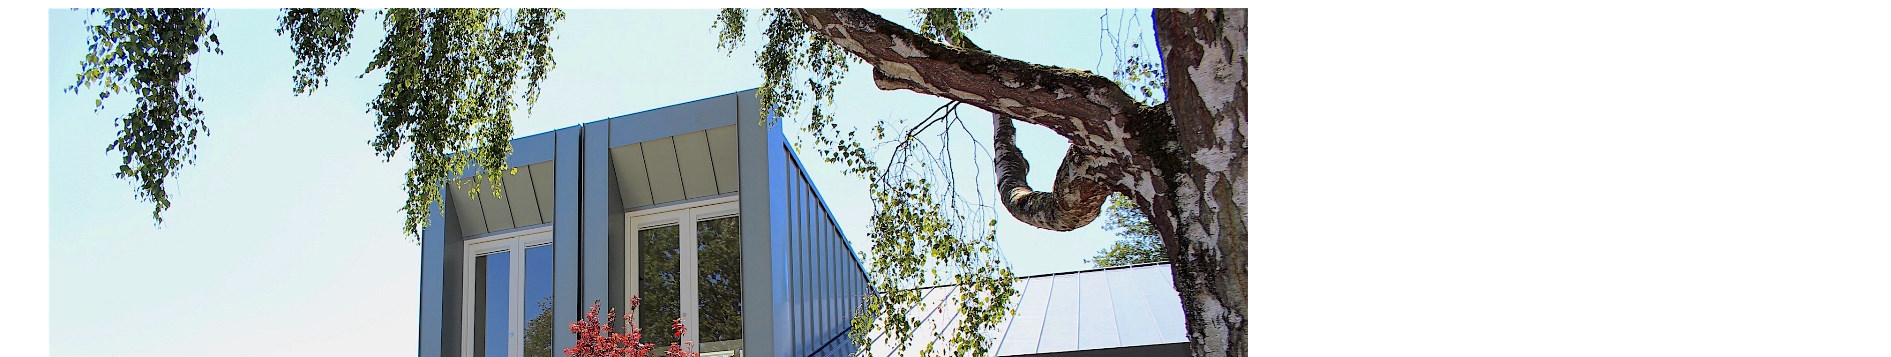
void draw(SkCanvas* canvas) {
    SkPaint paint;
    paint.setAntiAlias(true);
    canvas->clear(0xFFFFFFFF);
    canvas->drawImageRect(SkImages::DeferredFromEncodedData(SkData::MakeFromFileName("img1.png")), SkRect::MakeXYWH(48, 8, 1200, 349), SkSamplingOptions());
}
